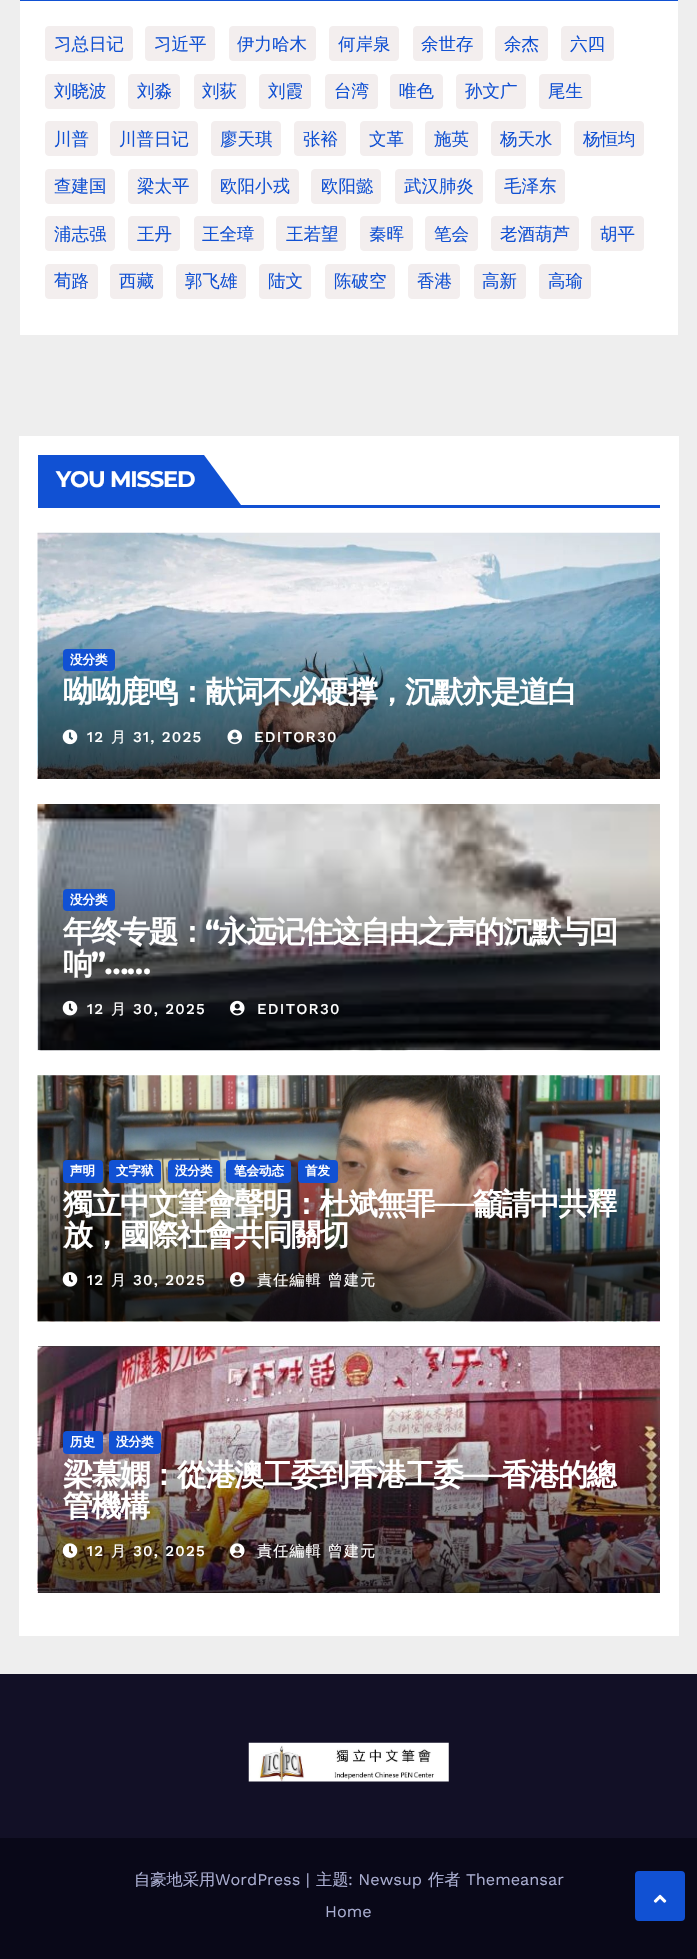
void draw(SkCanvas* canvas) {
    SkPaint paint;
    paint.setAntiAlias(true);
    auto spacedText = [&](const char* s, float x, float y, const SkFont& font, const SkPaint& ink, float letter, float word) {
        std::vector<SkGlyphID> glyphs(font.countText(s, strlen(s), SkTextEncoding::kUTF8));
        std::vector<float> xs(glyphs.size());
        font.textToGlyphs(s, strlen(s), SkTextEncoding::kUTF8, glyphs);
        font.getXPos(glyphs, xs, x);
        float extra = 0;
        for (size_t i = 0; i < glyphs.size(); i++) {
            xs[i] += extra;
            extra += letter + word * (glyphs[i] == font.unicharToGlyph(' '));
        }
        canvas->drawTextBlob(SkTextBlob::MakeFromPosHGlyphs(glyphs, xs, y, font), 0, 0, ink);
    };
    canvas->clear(0xFFEEEEEE);
    paint.setColor(0xFFFFFFFF);
    canvas->drawRect(SkRect::MakeXYWH(20, 1, 658, 334), paint);
    paint.setColor(0xFF1151D3);
    canvas->drawRect(SkRect::MakeXYWH(20, 0, 658, 1), paint);
    paint.setColor(0xFFF3EEEE);
    canvas->drawRoundRect(SkRect::MakeXYWH(45.5f, 26.5f, 87, 34), 3.5f, 3.5f, paint);
    paint.setStyle(SkPaint::kStroke_Style);
    paint.setStrokeWidth(1);
    canvas->drawRoundRect(SkRect::MakeXYWH(45.5f, 26.5f, 87, 34), 3.5f, 3.5f, paint);
    SkFont font1(fontMgr->matchFamilyStyle("WenQuanYi Zen Hei", SkFontStyle(500, SkFontStyle::kNormal_Width, SkFontStyle::kUpright_Slant)), 17.5f);
    font1.setSubpixel(true);
    paint.setStyle(SkPaint::kFill_Style);
    paint.setColor(0xFF1151D3);
    canvas->drawString("习总日记", 54, 50, font1, paint);
    paint.setColor(0xFFF3EEEE);
    canvas->drawRoundRect(SkRect::MakeXYWH(145.5f, 26.5f, 69, 34), 3.5f, 3.5f, paint);
    paint.setStyle(SkPaint::kStroke_Style);
    canvas->drawRoundRect(SkRect::MakeXYWH(145.5f, 26.5f, 69, 34), 3.5f, 3.5f, paint);
    paint.setStyle(SkPaint::kFill_Style);
    paint.setColor(0xFF1151D3);
    canvas->drawString("习近平", 154, 50, font1, paint);
    paint.setColor(0xFFF3EEEE);
    canvas->drawRoundRect(SkRect::MakeXYWH(229.5f, 26.5f, 86, 34), 3.5f, 3.5f, paint);
    paint.setStyle(SkPaint::kStroke_Style);
    canvas->drawRoundRect(SkRect::MakeXYWH(229.5f, 26.5f, 86, 34), 3.5f, 3.5f, paint);
    paint.setStyle(SkPaint::kFill_Style);
    paint.setColor(0xFF1151D3);
    canvas->drawString("伊力哈木", 237, 50, font1, paint);
    paint.setColor(0xFFF3EEEE);
    canvas->drawRoundRect(SkRect::MakeXYWH(329.5f, 26.5f, 69, 34), 3.5f, 3.5f, paint);
    paint.setStyle(SkPaint::kStroke_Style);
    canvas->drawRoundRect(SkRect::MakeXYWH(329.5f, 26.5f, 69, 34), 3.5f, 3.5f, paint);
    paint.setStyle(SkPaint::kFill_Style);
    paint.setColor(0xFF1151D3);
    canvas->drawString("何岸泉", 338, 50, font1, paint);
    paint.setColor(0xFFF3EEEE);
    canvas->drawRoundRect(SkRect::MakeXYWH(413.5f, 26.5f, 69, 34), 3.5f, 3.5f, paint);
    paint.setStyle(SkPaint::kStroke_Style);
    canvas->drawRoundRect(SkRect::MakeXYWH(413.5f, 26.5f, 69, 34), 3.5f, 3.5f, paint);
    paint.setStyle(SkPaint::kFill_Style);
    paint.setColor(0xFF1151D3);
    canvas->drawString("余世存", 421, 50, font1, paint);
    paint.setColor(0xFFF3EEEE);
    canvas->drawRoundRect(SkRect::MakeXYWH(495.5f, 26.5f, 52, 34), 3.5f, 3.5f, paint);
    paint.setStyle(SkPaint::kStroke_Style);
    canvas->drawRoundRect(SkRect::MakeXYWH(495.5f, 26.5f, 52, 34), 3.5f, 3.5f, paint);
    paint.setStyle(SkPaint::kFill_Style);
    paint.setColor(0xFF1151D3);
    canvas->drawString("余杰", 504, 50, font1, paint);
    paint.setColor(0xFFF3EEEE);
    canvas->drawRoundRect(SkRect::MakeXYWH(561.5f, 26.5f, 52, 34), 3.5f, 3.5f, paint);
    paint.setStyle(SkPaint::kStroke_Style);
    canvas->drawRoundRect(SkRect::MakeXYWH(561.5f, 26.5f, 52, 34), 3.5f, 3.5f, paint);
    paint.setStyle(SkPaint::kFill_Style);
    paint.setColor(0xFF1151D3);
    canvas->drawString("六四", 570, 50, font1, paint);
    paint.setColor(0xFFF3EEEE);
    canvas->drawRoundRect(SkRect::MakeXYWH(45.5f, 74.5f, 69, 34), 3.5f, 3.5f, paint);
    paint.setStyle(SkPaint::kStroke_Style);
    canvas->drawRoundRect(SkRect::MakeXYWH(45.5f, 74.5f, 69, 34), 3.5f, 3.5f, paint);
    paint.setStyle(SkPaint::kFill_Style);
    paint.setColor(0xFF1151D3);
    canvas->drawString("刘晓波", 54, 97, font1, paint);
    paint.setColor(0xFFF3EEEE);
    canvas->drawRoundRect(SkRect::MakeXYWH(128.5f, 74.5f, 51, 34), 3.5f, 3.5f, paint);
    paint.setStyle(SkPaint::kStroke_Style);
    canvas->drawRoundRect(SkRect::MakeXYWH(128.5f, 74.5f, 51, 34), 3.5f, 3.5f, paint);
    paint.setStyle(SkPaint::kFill_Style);
    paint.setColor(0xFF1151D3);
    canvas->drawString("刘淼", 137, 97, font1, paint);
    paint.setColor(0xFFF3EEEE);
    canvas->drawRoundRect(SkRect::MakeXYWH(194.5f, 74.5f, 51, 34), 3.5f, 3.5f, paint);
    paint.setStyle(SkPaint::kStroke_Style);
    canvas->drawRoundRect(SkRect::MakeXYWH(194.5f, 74.5f, 51, 34), 3.5f, 3.5f, paint);
    paint.setStyle(SkPaint::kFill_Style);
    paint.setColor(0xFF1151D3);
    canvas->drawString("刘荻", 202, 97, font1, paint);
    paint.setColor(0xFFF3EEEE);
    canvas->drawRoundRect(SkRect::MakeXYWH(259.5f, 74.5f, 51, 34), 3.5f, 3.5f, paint);
    paint.setStyle(SkPaint::kStroke_Style);
    canvas->drawRoundRect(SkRect::MakeXYWH(259.5f, 74.5f, 51, 34), 3.5f, 3.5f, paint);
    paint.setStyle(SkPaint::kFill_Style);
    paint.setColor(0xFF1151D3);
    canvas->drawString("刘霞", 268, 97, font1, paint);
    paint.setColor(0xFFF3EEEE);
    canvas->drawRoundRect(SkRect::MakeXYWH(325.5f, 74.5f, 52, 34), 3.5f, 3.5f, paint);
    paint.setStyle(SkPaint::kStroke_Style);
    canvas->drawRoundRect(SkRect::MakeXYWH(325.5f, 74.5f, 52, 34), 3.5f, 3.5f, paint);
    paint.setStyle(SkPaint::kFill_Style);
    paint.setColor(0xFF1151D3);
    canvas->drawString("台湾", 334, 97, font1, paint);
    paint.setColor(0xFFF3EEEE);
    canvas->drawRoundRect(SkRect::MakeXYWH(390.5f, 74.5f, 52, 34), 3.5f, 3.5f, paint);
    paint.setStyle(SkPaint::kStroke_Style);
    canvas->drawRoundRect(SkRect::MakeXYWH(390.5f, 74.5f, 52, 34), 3.5f, 3.5f, paint);
    paint.setStyle(SkPaint::kFill_Style);
    paint.setColor(0xFF1151D3);
    canvas->drawString("唯色", 399, 97, font1, paint);
    paint.setColor(0xFFF3EEEE);
    canvas->drawRoundRect(SkRect::MakeXYWH(456.5f, 74.5f, 69, 34), 3.5f, 3.5f, paint);
    paint.setStyle(SkPaint::kStroke_Style);
    canvas->drawRoundRect(SkRect::MakeXYWH(456.5f, 74.5f, 69, 34), 3.5f, 3.5f, paint);
    paint.setStyle(SkPaint::kFill_Style);
    paint.setColor(0xFF1151D3);
    canvas->drawString("孙文广", 465, 97, font1, paint);
    paint.setColor(0xFFF3EEEE);
    canvas->drawRoundRect(SkRect::MakeXYWH(539.5f, 74.5f, 51, 34), 3.5f, 3.5f, paint);
    paint.setStyle(SkPaint::kStroke_Style);
    canvas->drawRoundRect(SkRect::MakeXYWH(539.5f, 74.5f, 51, 34), 3.5f, 3.5f, paint);
    paint.setStyle(SkPaint::kFill_Style);
    paint.setColor(0xFF1151D3);
    canvas->drawString("尾生", 548, 97, font1, paint);
    paint.setColor(0xFFF3EEEE);
    canvas->drawRoundRect(SkRect::MakeXYWH(45.5f, 121.5f, 52, 34), 3.5f, 3.5f, paint);
    paint.setStyle(SkPaint::kStroke_Style);
    canvas->drawRoundRect(SkRect::MakeXYWH(45.5f, 121.5f, 52, 34), 3.5f, 3.5f, paint);
    paint.setStyle(SkPaint::kFill_Style);
    paint.setColor(0xFF1151D3);
    canvas->drawString("川普", 54, 145, font1, paint);
    paint.setColor(0xFFF3EEEE);
    canvas->drawRoundRect(SkRect::MakeXYWH(110.5f, 121.5f, 87, 34), 3.5f, 3.5f, paint);
    paint.setStyle(SkPaint::kStroke_Style);
    canvas->drawRoundRect(SkRect::MakeXYWH(110.5f, 121.5f, 87, 34), 3.5f, 3.5f, paint);
    paint.setStyle(SkPaint::kFill_Style);
    paint.setColor(0xFF1151D3);
    canvas->drawString("川普日记", 119, 145, font1, paint);
    paint.setColor(0xFFF3EEEE);
    canvas->drawRoundRect(SkRect::MakeXYWH(211.5f, 121.5f, 69, 34), 3.5f, 3.5f, paint);
    paint.setStyle(SkPaint::kStroke_Style);
    canvas->drawRoundRect(SkRect::MakeXYWH(211.5f, 121.5f, 69, 34), 3.5f, 3.5f, paint);
    paint.setStyle(SkPaint::kFill_Style);
    paint.setColor(0xFF1151D3);
    canvas->drawString("廖天琪", 220, 145, font1, paint);
    paint.setColor(0xFFF3EEEE);
    canvas->drawRoundRect(SkRect::MakeXYWH(294.5f, 121.5f, 51, 34), 3.5f, 3.5f, paint);
    paint.setStyle(SkPaint::kStroke_Style);
    canvas->drawRoundRect(SkRect::MakeXYWH(294.5f, 121.5f, 51, 34), 3.5f, 3.5f, paint);
    paint.setStyle(SkPaint::kFill_Style);
    paint.setColor(0xFF1151D3);
    canvas->drawString("张裕", 303, 145, font1, paint);
    paint.setColor(0xFFF3EEEE);
    canvas->drawRoundRect(SkRect::MakeXYWH(360.5f, 121.5f, 52, 34), 3.5f, 3.5f, paint);
    paint.setStyle(SkPaint::kStroke_Style);
    canvas->drawRoundRect(SkRect::MakeXYWH(360.5f, 121.5f, 52, 34), 3.5f, 3.5f, paint);
    paint.setStyle(SkPaint::kFill_Style);
    paint.setColor(0xFF1151D3);
    canvas->drawString("文革", 369, 145, font1, paint);
    paint.setColor(0xFFF3EEEE);
    canvas->drawRoundRect(SkRect::MakeXYWH(425.5f, 121.5f, 52, 34), 3.5f, 3.5f, paint);
    paint.setStyle(SkPaint::kStroke_Style);
    canvas->drawRoundRect(SkRect::MakeXYWH(425.5f, 121.5f, 52, 34), 3.5f, 3.5f, paint);
    paint.setStyle(SkPaint::kFill_Style);
    paint.setColor(0xFF1151D3);
    canvas->drawString("施英", 434, 145, font1, paint);
    paint.setColor(0xFFF3EEEE);
    canvas->drawRoundRect(SkRect::MakeXYWH(491.5f, 121.5f, 69, 34), 3.5f, 3.5f, paint);
    paint.setStyle(SkPaint::kStroke_Style);
    canvas->drawRoundRect(SkRect::MakeXYWH(491.5f, 121.5f, 69, 34), 3.5f, 3.5f, paint);
    paint.setStyle(SkPaint::kFill_Style);
    paint.setColor(0xFF1151D3);
    canvas->drawString("杨天水", 500, 145, font1, paint);
    paint.setColor(0xFFF3EEEE);
    canvas->drawRoundRect(SkRect::MakeXYWH(574.5f, 121.5f, 69, 34), 3.5f, 3.5f, paint);
    paint.setStyle(SkPaint::kStroke_Style);
    canvas->drawRoundRect(SkRect::MakeXYWH(574.5f, 121.5f, 69, 34), 3.5f, 3.5f, paint);
    paint.setStyle(SkPaint::kFill_Style);
    paint.setColor(0xFF1151D3);
    canvas->drawString("杨恒均", 583, 145, font1, paint);
    paint.setColor(0xFFF3EEEE);
    canvas->drawRoundRect(SkRect::MakeXYWH(45.5f, 169.5f, 69, 34), 3.5f, 3.5f, paint);
    paint.setStyle(SkPaint::kStroke_Style);
    canvas->drawRoundRect(SkRect::MakeXYWH(45.5f, 169.5f, 69, 34), 3.5f, 3.5f, paint);
    paint.setStyle(SkPaint::kFill_Style);
    paint.setColor(0xFF1151D3);
    canvas->drawString("查建国", 54, 192, font1, paint);
    paint.setColor(0xFFF3EEEE);
    canvas->drawRoundRect(SkRect::MakeXYWH(128.5f, 169.5f, 69, 34), 3.5f, 3.5f, paint);
    paint.setStyle(SkPaint::kStroke_Style);
    canvas->drawRoundRect(SkRect::MakeXYWH(128.5f, 169.5f, 69, 34), 3.5f, 3.5f, paint);
    paint.setStyle(SkPaint::kFill_Style);
    paint.setColor(0xFF1151D3);
    canvas->drawString("梁太平", 137, 192, font1, paint);
    paint.setColor(0xFFF3EEEE);
    canvas->drawRoundRect(SkRect::MakeXYWH(211.5f, 169.5f, 87, 34), 3.5f, 3.5f, paint);
    paint.setStyle(SkPaint::kStroke_Style);
    canvas->drawRoundRect(SkRect::MakeXYWH(211.5f, 169.5f, 87, 34), 3.5f, 3.5f, paint);
    paint.setStyle(SkPaint::kFill_Style);
    paint.setColor(0xFF1151D3);
    canvas->drawString("欧阳小戎", 220, 192, font1, paint);
    paint.setColor(0xFFF3EEEE);
    canvas->drawRoundRect(SkRect::MakeXYWH(311.5f, 169.5f, 69, 34), 3.5f, 3.5f, paint);
    paint.setStyle(SkPaint::kStroke_Style);
    canvas->drawRoundRect(SkRect::MakeXYWH(311.5f, 169.5f, 69, 34), 3.5f, 3.5f, paint);
    paint.setStyle(SkPaint::kFill_Style);
    paint.setColor(0xFF1151D3);
    canvas->drawString("欧阳懿", 321, 192, font1, paint);
    paint.setColor(0xFFF3EEEE);
    canvas->drawRoundRect(SkRect::MakeXYWH(395.5f, 169.5f, 87, 34), 3.5f, 3.5f, paint);
    paint.setStyle(SkPaint::kStroke_Style);
    canvas->drawRoundRect(SkRect::MakeXYWH(395.5f, 169.5f, 87, 34), 3.5f, 3.5f, paint);
    paint.setStyle(SkPaint::kFill_Style);
    paint.setColor(0xFF1151D3);
    canvas->drawString("武汉肺炎", 404, 192, font1, paint);
    paint.setColor(0xFFF3EEEE);
    canvas->drawRoundRect(SkRect::MakeXYWH(495.5f, 169.5f, 69, 34), 3.5f, 3.5f, paint);
    paint.setStyle(SkPaint::kStroke_Style);
    canvas->drawRoundRect(SkRect::MakeXYWH(495.5f, 169.5f, 69, 34), 3.5f, 3.5f, paint);
    paint.setStyle(SkPaint::kFill_Style);
    paint.setColor(0xFF1151D3);
    canvas->drawString("毛泽东", 504, 192, font1, paint);
    paint.setColor(0xFFF3EEEE);
    canvas->drawRoundRect(SkRect::MakeXYWH(45.5f, 216.5f, 69, 34), 3.5f, 3.5f, paint);
    paint.setStyle(SkPaint::kStroke_Style);
    canvas->drawRoundRect(SkRect::MakeXYWH(45.5f, 216.5f, 69, 34), 3.5f, 3.5f, paint);
    paint.setStyle(SkPaint::kFill_Style);
    paint.setColor(0xFF1151D3);
    canvas->drawString("浦志强", 54, 240, font1, paint);
    paint.setColor(0xFFF3EEEE);
    canvas->drawRoundRect(SkRect::MakeXYWH(128.5f, 216.5f, 51, 34), 3.5f, 3.5f, paint);
    paint.setStyle(SkPaint::kStroke_Style);
    canvas->drawRoundRect(SkRect::MakeXYWH(128.5f, 216.5f, 51, 34), 3.5f, 3.5f, paint);
    paint.setStyle(SkPaint::kFill_Style);
    paint.setColor(0xFF1151D3);
    canvas->drawString("王丹", 137, 240, font1, paint);
    paint.setColor(0xFFF3EEEE);
    canvas->drawRoundRect(SkRect::MakeXYWH(194.5f, 216.5f, 69, 34), 3.5f, 3.5f, paint);
    paint.setStyle(SkPaint::kStroke_Style);
    canvas->drawRoundRect(SkRect::MakeXYWH(194.5f, 216.5f, 69, 34), 3.5f, 3.5f, paint);
    paint.setStyle(SkPaint::kFill_Style);
    paint.setColor(0xFF1151D3);
    canvas->drawString("王全璋", 202, 240, font1, paint);
    paint.setColor(0xFFF3EEEE);
    canvas->drawRoundRect(SkRect::MakeXYWH(276.5f, 216.5f, 69, 34), 3.5f, 3.5f, paint);
    paint.setStyle(SkPaint::kStroke_Style);
    canvas->drawRoundRect(SkRect::MakeXYWH(276.5f, 216.5f, 69, 34), 3.5f, 3.5f, paint);
    paint.setStyle(SkPaint::kFill_Style);
    paint.setColor(0xFF1151D3);
    canvas->drawString("王若望", 286, 240, font1, paint);
    paint.setColor(0xFFF3EEEE);
    canvas->drawRoundRect(SkRect::MakeXYWH(360.5f, 216.5f, 52, 34), 3.5f, 3.5f, paint);
    paint.setStyle(SkPaint::kStroke_Style);
    canvas->drawRoundRect(SkRect::MakeXYWH(360.5f, 216.5f, 52, 34), 3.5f, 3.5f, paint);
    paint.setStyle(SkPaint::kFill_Style);
    paint.setColor(0xFF1151D3);
    canvas->drawString("秦晖", 369, 240, font1, paint);
    paint.setColor(0xFFF3EEEE);
    canvas->drawRoundRect(SkRect::MakeXYWH(425.5f, 216.5f, 52, 34), 3.5f, 3.5f, paint);
    paint.setStyle(SkPaint::kStroke_Style);
    canvas->drawRoundRect(SkRect::MakeXYWH(425.5f, 216.5f, 52, 34), 3.5f, 3.5f, paint);
    paint.setStyle(SkPaint::kFill_Style);
    paint.setColor(0xFF1151D3);
    canvas->drawString("笔会", 434, 240, font1, paint);
    paint.setColor(0xFFF3EEEE);
    canvas->drawRoundRect(SkRect::MakeXYWH(491.5f, 216.5f, 87, 34), 3.5f, 3.5f, paint);
    paint.setStyle(SkPaint::kStroke_Style);
    canvas->drawRoundRect(SkRect::MakeXYWH(491.5f, 216.5f, 87, 34), 3.5f, 3.5f, paint);
    paint.setStyle(SkPaint::kFill_Style);
    paint.setColor(0xFF1151D3);
    canvas->drawString("老酒葫芦", 500, 240, font1, paint);
    paint.setColor(0xFFF3EEEE);
    canvas->drawRoundRect(SkRect::MakeXYWH(591.5f, 216.5f, 52, 34), 3.5f, 3.5f, paint);
    paint.setStyle(SkPaint::kStroke_Style);
    canvas->drawRoundRect(SkRect::MakeXYWH(591.5f, 216.5f, 52, 34), 3.5f, 3.5f, paint);
    paint.setStyle(SkPaint::kFill_Style);
    paint.setColor(0xFF1151D3);
    canvas->drawString("胡平", 600, 240, font1, paint);
    paint.setColor(0xFFF3EEEE);
    canvas->drawRoundRect(SkRect::MakeXYWH(45.5f, 264.5f, 52, 34), 3.5f, 3.5f, paint);
    paint.setStyle(SkPaint::kStroke_Style);
    canvas->drawRoundRect(SkRect::MakeXYWH(45.5f, 264.5f, 52, 34), 3.5f, 3.5f, paint);
    paint.setStyle(SkPaint::kFill_Style);
    paint.setColor(0xFF1151D3);
    canvas->drawString("荀路", 54, 287, font1, paint);
    paint.setColor(0xFFF3EEEE);
    canvas->drawRoundRect(SkRect::MakeXYWH(110.5f, 264.5f, 52, 34), 3.5f, 3.5f, paint);
    paint.setStyle(SkPaint::kStroke_Style);
    canvas->drawRoundRect(SkRect::MakeXYWH(110.5f, 264.5f, 52, 34), 3.5f, 3.5f, paint);
    paint.setStyle(SkPaint::kFill_Style);
    paint.setColor(0xFF1151D3);
    canvas->drawString("西藏", 119, 287, font1, paint);
    paint.setColor(0xFFF3EEEE);
    canvas->drawRoundRect(SkRect::MakeXYWH(176.5f, 264.5f, 69, 34), 3.5f, 3.5f, paint);
    paint.setStyle(SkPaint::kStroke_Style);
    canvas->drawRoundRect(SkRect::MakeXYWH(176.5f, 264.5f, 69, 34), 3.5f, 3.5f, paint);
    paint.setStyle(SkPaint::kFill_Style);
    paint.setColor(0xFF1151D3);
    canvas->drawString("郭飞雄", 185, 287, font1, paint);
    paint.setColor(0xFFF3EEEE);
    canvas->drawRoundRect(SkRect::MakeXYWH(259.5f, 264.5f, 51, 34), 3.5f, 3.5f, paint);
    paint.setStyle(SkPaint::kStroke_Style);
    canvas->drawRoundRect(SkRect::MakeXYWH(259.5f, 264.5f, 51, 34), 3.5f, 3.5f, paint);
    paint.setStyle(SkPaint::kFill_Style);
    paint.setColor(0xFF1151D3);
    canvas->drawString("陆文", 268, 287, font1, paint);
    paint.setColor(0xFFF3EEEE);
    canvas->drawRoundRect(SkRect::MakeXYWH(325.5f, 264.5f, 69, 34), 3.5f, 3.5f, paint);
    paint.setStyle(SkPaint::kStroke_Style);
    canvas->drawRoundRect(SkRect::MakeXYWH(325.5f, 264.5f, 69, 34), 3.5f, 3.5f, paint);
    paint.setStyle(SkPaint::kFill_Style);
    paint.setColor(0xFF1151D3);
    canvas->drawString("陈破空", 334, 287, font1, paint);
    paint.setColor(0xFFF3EEEE);
    canvas->drawRoundRect(SkRect::MakeXYWH(408.5f, 264.5f, 51, 34), 3.5f, 3.5f, paint);
    paint.setStyle(SkPaint::kStroke_Style);
    canvas->drawRoundRect(SkRect::MakeXYWH(408.5f, 264.5f, 51, 34), 3.5f, 3.5f, paint);
    paint.setStyle(SkPaint::kFill_Style);
    paint.setColor(0xFF1151D3);
    canvas->drawString("香港", 417, 287, font1, paint);
    paint.setColor(0xFFF3EEEE);
    canvas->drawRoundRect(SkRect::MakeXYWH(474.5f, 264.5f, 51, 34), 3.5f, 3.5f, paint);
    paint.setStyle(SkPaint::kStroke_Style);
    canvas->drawRoundRect(SkRect::MakeXYWH(474.5f, 264.5f, 51, 34), 3.5f, 3.5f, paint);
    paint.setStyle(SkPaint::kFill_Style);
    paint.setColor(0xFF1151D3);
    canvas->drawString("高新", 482, 287, font1, paint);
    paint.setColor(0xFFF3EEEE);
    canvas->drawRoundRect(SkRect::MakeXYWH(539.5f, 264.5f, 51, 34), 3.5f, 3.5f, paint);
    paint.setStyle(SkPaint::kStroke_Style);
    canvas->drawRoundRect(SkRect::MakeXYWH(539.5f, 264.5f, 51, 34), 3.5f, 3.5f, paint);
    paint.setStyle(SkPaint::kFill_Style);
    paint.setColor(0xFF1151D3);
    canvas->drawString("高瑜", 548, 287, font1, paint);
    paint.setColor(0xFFFFFFFF);
    canvas->drawRect(SkRect::MakeXYWH(19, 436, 660, 1200), paint);
    paint.setColor(0xFF1151D3);
    canvas->drawRect(SkRect::MakeXYWH(38, 505, 622, 3), paint);
    canvas->drawRect(SkRect::MakeXYWH(38, 455, 166, 50), paint);
    SkFont font2(fontMgr->matchFamilyStyle("Montserrat", SkFontStyle::Bold()), 22.5f);
    font2.setSubpixel(true);
    paint.setColor(0xFFFFFFFF);
    spacedText("YOU MISSED", 56, 487, font2, paint, -1.1f, 0);
    paint.setColor(0xFF1151D3);
    canvas->drawPath(SkPathBuilder().moveTo(204, 505).lineTo(204, 455).lineTo(241, 505).close().detach(), paint);
    canvas->drawImageRect(SkImages::DeferredFromEncodedData(SkData::MakeFromFileName("img1.png")), SkRect::MakeXYWH(37, 532, 623, 247), SkSamplingOptions());
    canvas->drawRoundRect(SkRect::MakeXYWH(63, 649, 52, 22), 4, 4, paint);
    SkFont font3(fontMgr->matchFamilyStyle("WenQuanYi Zen Hei", SkFontStyle::Bold()), 12.5f);
    font3.setSubpixel(true);
    paint.setColor(0xFFFFFFFF);
    canvas->drawString("没分类", 70, 664, font3, paint);
    SkFont font4(fontMgr->matchFamilyStyle("WenQuanYi Zen Hei", SkFontStyle::Bold()), 30);
    font4.setSubpixel(true);
    spacedText("呦呦鹿鸣：献词不必硬撑，沉默亦是道白", 63, 702, font4, paint, -1.5f, 0);
    canvas->drawImageRect(SkImages::DeferredFromEncodedData(SkData::MakeFromFileName("img2.png")), SkRect::MakeXYWH(62, 729, 16, 16), SkSamplingOptions());
    SkFont font5(fontMgr->matchFamilyStyle("Work Sans", SkFontStyle(500, SkFontStyle::kNormal_Width, SkFontStyle::kUpright_Slant)), 15);
    font5.setSubpixel(true);
    spacedText("12", 87, 742, font5, paint, 1.25f, 0);
    SkFont font6(fontMgr->matchFamilyStyle("WenQuanYi Zen Hei", SkFontStyle(500, SkFontStyle::kNormal_Width, SkFontStyle::kUpright_Slant)), 15);
    font6.setSubpixel(true);
    spacedText("月", 111, 742, font6, paint, 1.25f, 0);
    spacedText("31, 2025", 133, 742, font5, paint, 1.25f, 0);
    canvas->drawImageRect(SkImages::DeferredFromEncodedData(SkData::MakeFromFileName("img3.png")), SkRect::MakeXYWH(227, 729, 15, 16), SkSamplingOptions());
    spacedText("EDITOR30", 254, 742, font5, paint, 1.25f, 0);
    canvas->drawImageRect(SkImages::DeferredFromEncodedData(SkData::MakeFromFileName("img4.png")), SkRect::MakeXYWH(37, 804, 623, 247), SkSamplingOptions());
    paint.setColor(0xFF1151D3);
    canvas->drawRoundRect(SkRect::MakeXYWH(63, 889, 52, 22), 4, 4, paint);
    paint.setColor(0xFFFFFFFF);
    canvas->drawString("没分类", 70, 904, font3, paint);
    spacedText("年终专题：", 63, 942, font4, paint, -1.5f, 0);
    SkFont font7(fontMgr->matchFamilyStyle("Montserrat", SkFontStyle::Bold()), 30);
    font7.setSubpixel(true);
    spacedText("“", 205, 942, font7, paint, -1.5f, 0);
    spacedText("永远记住这自由之声的沉默与回", 218, 942, font4, paint, -1.5f, 0);
    spacedText("响", 63, 974, font4, paint, -1.5f, 0);
    spacedText("”……", 91, 974, font7, paint, -1.5f, 0);
    canvas->drawImageRect(SkImages::DeferredFromEncodedData(SkData::MakeFromFileName("img5.png")), SkRect::MakeXYWH(62, 1000, 16, 16), SkSamplingOptions());
    spacedText("12", 87, 1014, font5, paint, 1.25f, 0);
    spacedText("月", 111, 1014, font6, paint, 1.25f, 0);
    spacedText("30, 2025", 133, 1014, font5, paint, 1.25f, 0);
    canvas->drawImageRect(SkImages::DeferredFromEncodedData(SkData::MakeFromFileName("img6.png")), SkRect::MakeXYWH(230, 1000, 15, 16), SkSamplingOptions());
    spacedText("EDITOR30", 257, 1014, font5, paint, 1.25f, 0);
    canvas->drawImageRect(SkImages::DeferredFromEncodedData(SkData::MakeFromFileName("img7.png")), SkRect::MakeXYWH(37, 1075, 623, 247), SkSamplingOptions());
    paint.setColor(0xFF1151D3);
    canvas->drawRoundRect(SkRect::MakeXYWH(63, 1160, 40, 23), 4, 4, paint);
    paint.setColor(0xFFFFFFFF);
    canvas->drawString("声明", 70, 1175, font3, paint);
    paint.setColor(0xFF1151D3);
    canvas->drawRoundRect(SkRect::MakeXYWH(109, 1160, 52, 23), 4, 4, paint);
    paint.setColor(0xFFFFFFFF);
    canvas->drawString("文字狱", 116, 1175, font3, paint);
    paint.setColor(0xFF1151D3);
    canvas->drawRoundRect(SkRect::MakeXYWH(168, 1160, 52, 23), 4, 4, paint);
    paint.setColor(0xFFFFFFFF);
    canvas->drawString("没分类", 175, 1175, font3, paint);
    paint.setColor(0xFF1151D3);
    canvas->drawRoundRect(SkRect::MakeXYWH(226, 1160, 65, 23), 4, 4, paint);
    paint.setColor(0xFFFFFFFF);
    canvas->drawString("笔会动态", 234, 1175, font3, paint);
    paint.setColor(0xFF1151D3);
    canvas->drawRoundRect(SkRect::MakeXYWH(298, 1160, 40, 23), 4, 4, paint);
    paint.setColor(0xFFFFFFFF);
    canvas->drawString("首发", 305, 1175, font3, paint);
    spacedText("獨立中文筆會聲明：杜斌無罪", 63, 1214, font4, paint, -1.5f, 0);
    SkFont font8(fontMgr->matchFamilyStyle("Liberation Sans", SkFontStyle::Bold()), 30);
    font8.setSubpixel(true);
    spacedText("──", 433, 1214, font8, paint, -1.5f, 0);
    spacedText("籲請中共釋", 473, 1214, font4, paint, -1.5f, 0);
    spacedText("放，國際社會共同關切", 63, 1245, font4, paint, -1.5f, 0);
    canvas->drawImageRect(SkImages::DeferredFromEncodedData(SkData::MakeFromFileName("img8.png")), SkRect::MakeXYWH(62, 1272, 16, 15), SkSamplingOptions());
    spacedText("12", 87, 1285, font5, paint, 1.25f, 0);
    spacedText("月", 111, 1285, font6, paint, 1.25f, 0);
    spacedText("30, 2025", 133, 1285, font5, paint, 1.25f, 0);
    canvas->drawImageRect(SkImages::DeferredFromEncodedData(SkData::MakeFromFileName("img9.png")), SkRect::MakeXYWH(230, 1272, 15, 15), SkSamplingOptions());
    spacedText("責任編輯 曾建元", 257, 1285, font6, paint, 1.25f, 0);
    paint.setColor(0xFF333333);
    canvas->drawRect(SkRect::MakeXYWH(38, 1346, 622, 247), paint);
    canvas->drawImageRect(SkImages::DeferredFromEncodedData(SkData::MakeFromFileName("img10.png")), SkRect::MakeXYWH(37, 1346, 623, 247), SkSamplingOptions());
    {
        const SkColor colors[] = {0x00000000, 0x66000000, 0xB3000000};
        const float stops[] = {0, 0.5f, 1};
        const SkPoint ends[] = {{349, 1409}, {349, 1593}};
        paint.setShader(SkGradientShader::MakeLinear(ends, colors, stops, 3, SkTileMode::kClamp));
        paint.setAlpha(255);
    }
    canvas->drawRect(SkRect::MakeXYWH(38, 1414, 622, 179), paint);
    paint.setShader(nullptr);
    paint.setColor(0xFF1151D3);
    canvas->drawRoundRect(SkRect::MakeXYWH(63, 1431, 40, 23), 4, 4, paint);
    paint.setColor(0xFFFFFFFF);
    canvas->drawString("历史", 70, 1446, font3, paint);
    paint.setColor(0xFF1151D3);
    canvas->drawRoundRect(SkRect::MakeXYWH(109, 1431, 52, 23), 4, 4, paint);
    paint.setColor(0xFFFFFFFF);
    canvas->drawString("没分类", 116, 1446, font3, paint);
    spacedText("梁慕嫻：從港澳工委到香港工委", 63, 1485, font4, paint, -1.5f, 0);
    spacedText("──", 462, 1485, font8, paint, -1.5f, 0);
    spacedText("香港的總", 501, 1485, font4, paint, -1.5f, 0);
    spacedText("管機構", 63, 1516, font4, paint, -1.5f, 0);
    canvas->drawImageRect(SkImages::DeferredFromEncodedData(SkData::MakeFromFileName("img11.png")), SkRect::MakeXYWH(62, 1543, 16, 15), SkSamplingOptions());
    spacedText("12", 87, 1556, font5, paint, 1.25f, 0);
    spacedText("月", 111, 1556, font6, paint, 1.25f, 0);
    spacedText("30, 2025", 133, 1556, font5, paint, 1.25f, 0);
    canvas->drawImageRect(SkImages::DeferredFromEncodedData(SkData::MakeFromFileName("img12.png")), SkRect::MakeXYWH(230, 1543, 15, 15), SkSamplingOptions());
    spacedText("責任編輯 曾建元", 257, 1556, font6, paint, 1.25f, 0);
    paint.setColor(0xFF121026);
    canvas->drawRect(SkRect::MakeXYWH(0, 1674, 697, 164), paint);
    canvas->drawImageRect(SkImages::DeferredFromEncodedData(SkData::MakeFromFileName("img13.png")), SkRect::MakeXYWH(248, 1742, 201, 40), SkSamplingOptions());
    paint.setColor(0xFF090818);
    canvas->drawRect(SkRect::MakeXYWH(0, 1838, 697, 121), paint);
    SkFont font9(fontMgr->matchFamilyStyle("WenQuanYi Zen Hei", SkFontStyle(500, SkFontStyle::kNormal_Width, SkFontStyle::kUpright_Slant)), 16.25f);
    font9.setSubpixel(true);
    paint.setColor(0xFFAAAED1);
    canvas->drawString("自豪地采用", 134, 1885, font9, paint);
    SkFont font10(fontMgr->matchFamilyStyle("Work Sans", SkFontStyle::Normal()), 16.25f);
    font10.setSubpixel(true);
    canvas->drawString("WordPress |", 215, 1885, font10, paint);
    canvas->drawString("主题", 316, 1885, font9, paint);
    canvas->drawString(": Newsup", 348, 1885, font10, paint);
    canvas->drawString("作者", 428, 1885, font9, paint);
    canvas->drawString("Themeansar", 466, 1885, font10, paint);
    canvas->drawString("Home", 325, 1917, font10, paint);
    paint.setColor(0xFF1151D3);
    canvas->drawRoundRect(SkRect::MakeXYWH(636.5f, 1872.5f, 47, 47), 2.5f, 2.5f, paint);
    paint.setStyle(SkPaint::kStroke_Style);
    paint.setStrokeWidth(3);
    canvas->drawRoundRect(SkRect::MakeXYWH(636.5f, 1872.5f, 47, 47), 2.5f, 2.5f, paint);
    canvas->drawImageRect(SkImages::DeferredFromEncodedData(SkData::MakeFromFileName("img14.png")), SkRect::MakeXYWH(653, 1894, 14, 9), SkSamplingOptions());
}
